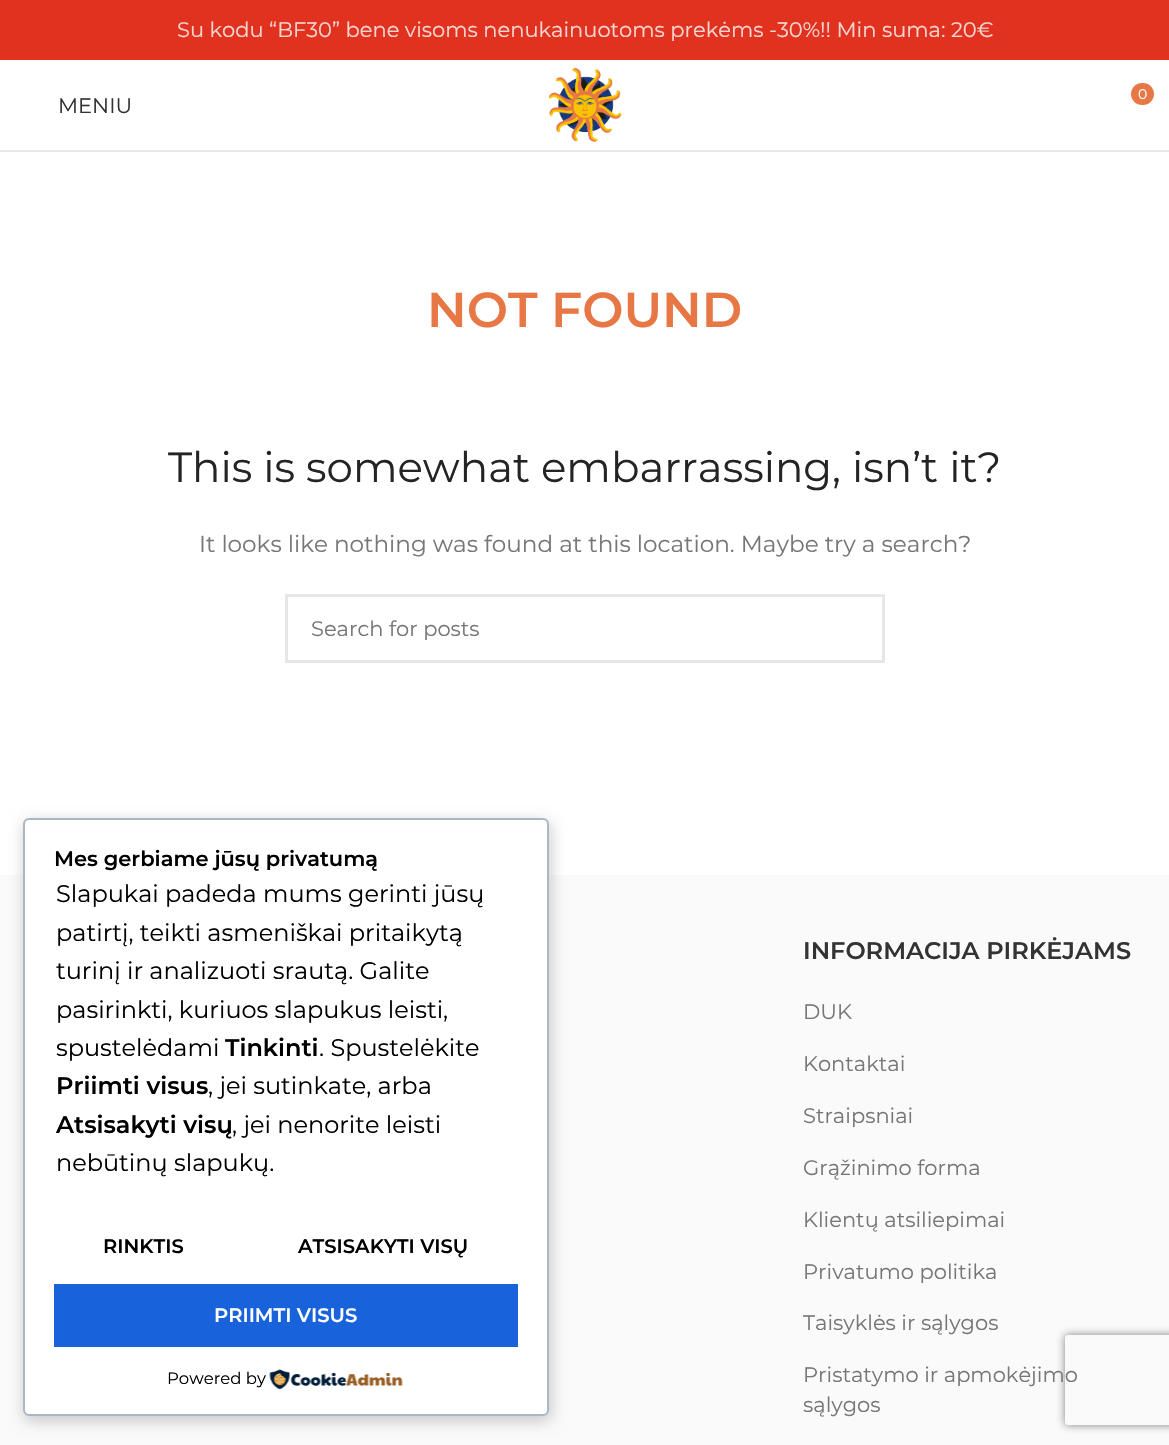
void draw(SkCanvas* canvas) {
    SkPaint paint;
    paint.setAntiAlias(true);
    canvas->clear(0xFFFFFFFF);
    paint.setColor(0xFFE0321F);
    canvas->drawRect(SkRect::MakeXYWH(0, 0, 1169, 60), paint);
    SkFont font1(fontMgr->matchFamilyStyle("Montserrat", SkFontStyle::Normal()), 21);
    font1.setSubpixel(true);
    paint.setColor(0xFFF9D6D2);
    canvas->drawString("Su kodu “BF30” bene visoms nenukainuotoms prekėms -30%!! Min suma: 20€", 177, 37, font1, paint);
    paint.setColor(0xFFE8E8E8);
    canvas->drawRect(SkRect::MakeXYWH(0, 150, 1169, 2), paint);
    canvas->drawImageRect(SkImages::DeferredFromEncodedData(SkData::MakeFromFileName("img1.png")), SkRect::MakeXYWH(548, 67, 74, 75), SkSamplingOptions());
    paint.setColor(0xFFE77744);
    canvas->drawRoundRect(SkRect::MakeXYWH(1131, 83, 23, 22), 11, 11, paint);
    SkFont font2(fontMgr->matchFamilyStyle("Montserrat", SkFontStyle::Normal()), 14);
    font2.setSubpixel(true);
    paint.setColor(0xFFFFFFFF);
    canvas->drawString("0", 1138, 99, font2, paint);
    paint.setColor(0xFF333333);
    canvas->drawString("MENIU", 58, 113, font1, paint);
    SkFont font3(fontMgr->matchFamilyStyle("Montserrat", SkFontStyle(600, SkFontStyle::kNormal_Width, SkFontStyle::kUpright_Slant)), 49);
    font3.setSubpixel(true);
    paint.setColor(0xFFE77744);
    canvas->drawString("NOT FOUND", 427, 327, font3, paint);
    SkFont font4(fontMgr->matchFamilyStyle("Montserrat", SkFontStyle::Normal()), 42);
    font4.setSubpixel(true);
    paint.setColor(0xFF242424);
    canvas->drawString("This is somewhat embarrassing, isn’t it?", 168, 482, font4, paint);
    SkFont font5(fontMgr->matchFamilyStyle("Montserrat", SkFontStyle::Normal()), 23.1f);
    font5.setSubpixel(true);
    paint.setColor(0xFF767676);
    canvas->drawString("It looks like nothing was found at this location. Maybe try a search?", 199, 552, font5, paint);
    paint.setStyle(SkPaint::kStroke_Style);
    paint.setStrokeWidth(3);
    paint.setColor(0xFFE6E6E6);
    canvas->drawRect(SkRect::MakeXYWH(286.5f, 595.5f, 597, 66), paint);
    paint.setStyle(SkPaint::kFill_Style);
    paint.setColor(0xFF767676);
    canvas->drawString("Search for posts", 311, 636, font1, paint);
    paint.setColor(0xFFFAFAFA);
    canvas->drawRect(SkRect::MakeXYWH(0, 875, 1169, 570), paint);
    SkFont font6(fontMgr->matchFamilyStyle("Montserrat", SkFontStyle(600, SkFontStyle::kNormal_Width, SkFontStyle::kUpright_Slant)), 24);
    font6.setSubpixel(true);
    paint.setColor(0xFF333333);
    canvas->drawString("INFORMACIJA PIRKĖJAMS", 803, 959, font6, paint);
    paint.setColor(0xFF767676);
    canvas->drawString("DUK", 803, 1019, font1, paint);
    canvas->drawString("Kontaktai", 803, 1071, font1, paint);
    canvas->drawString("Straipsniai", 803, 1123, font1, paint);
    canvas->drawString("Grąžinimo forma", 803, 1175, font1, paint);
    canvas->drawString("Klientų atsiliepimai", 803, 1227, font1, paint);
    canvas->drawString("Privatumo politika", 803, 1279, font1, paint);
    canvas->drawString("Taisyklės ir sąlygos", 803, 1330, font1, paint);
    canvas->drawString("Pristatymo ir apmokėjimo", 803, 1382, font1, paint);
    canvas->drawString("sąlygos", 803, 1412, font1, paint);
    paint.setColor(0x33000000);
    paint.setMaskFilter(SkMaskFilter::MakeBlur(kNormal_SkBlurStyle, 7.5f));
    canvas->drawRoundRect(SkRect::MakeXYWH(24, 822, 527, 599), 6, 6, paint);
    paint.setMaskFilter(nullptr);
    paint.setColor(0xFFFFFFFF);
    canvas->drawRoundRect(SkRect::MakeXYWH(24, 819, 524, 596), 5, 5, paint);
    paint.setStyle(SkPaint::kStroke_Style);
    paint.setStrokeWidth(2);
    paint.setColor(0xFFABB8C3);
    canvas->drawRoundRect(SkRect::MakeXYWH(24, 819, 524, 596), 5, 5, paint);
    SkFont font7(fontMgr->matchFamilyStyle("Montserrat", SkFontStyle(600, SkFontStyle::kNormal_Width, SkFontStyle::kUpright_Slant)), 21);
    font7.setSubpixel(true);
    paint.setStyle(SkPaint::kFill_Style);
    paint.setColor(0xFF000000);
    canvas->drawString("Mes gerbiame jūsų privatumą", 54, 866, font7, paint);
    SkFont font8(fontMgr->matchFamilyStyle("Montserrat", SkFontStyle::Normal()), 24);
    font8.setSubpixel(true);
    canvas->drawString("Slapukai padeda mums gerinti jūsų", 56, 902, font8, paint);
    canvas->drawString("patirtį, teikti asmeniškai pritaikytą", 56, 941, font8, paint);
    canvas->drawString("turinį ir analizuoti srautą. Galite", 56, 979, font8, paint);
    canvas->drawString("pasirinkti, kuriuos slapukus leisti,", 56, 1018, font8, paint);
    canvas->drawString("spustelėdami", 56, 1056, font8, paint);
    canvas->drawString("Tinkinti", 225, 1056, font6, paint);
    canvas->drawString(". Spustelėkite", 319, 1056, font8, paint);
    canvas->drawString("Priimti visus", 56, 1094, font6, paint);
    canvas->drawString(", jei sutinkate, arba", 208, 1094, font8, paint);
    canvas->drawString("Atsisakyti visų", 56, 1133, font6, paint);
    canvas->drawString(", jei nenorite leisti", 232, 1133, font8, paint);
    canvas->drawString("nebūtinų slapukų.", 56, 1171, font8, paint);
    SkFont font9(fontMgr->matchFamilyStyle("Montserrat", SkFontStyle(600, SkFontStyle::kNormal_Width, SkFontStyle::kUpright_Slant)), 19.5f);
    font9.setSubpixel(true);
    canvas->drawString("RINKTIS", 103, 1253, font9, paint);
    canvas->drawString("ATSISAKYTI VISŲ", 298, 1253, font9, paint);
    paint.setColor(0xFF1863DC);
    canvas->drawRect(SkRect::MakeXYWH(54, 1284, 464, 63), paint);
    paint.setColor(0xFFFFFFFF);
    canvas->drawString("PRIIMTI VISUS", 214, 1322, font9, paint);
    SkFont font10(fontMgr->matchFamilyStyle("Montserrat", SkFontStyle::Normal()), 16.5f);
    font10.setSubpixel(true);
    paint.setColor(0xFF000000);
    canvas->drawString("Powered by", 167, 1384, font10, paint);
    canvas->drawImageRect(SkImages::DeferredFromEncodedData(SkData::MakeFromFileName("img2.png")), SkRect::MakeXYWH(269, 1369, 134, 21), SkSamplingOptions());
    canvas->save();
    canvas->clipPath(SkPathBuilder(SkPathFillType::kEvenOdd).moveTo(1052, 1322).lineTo(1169, 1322).lineTo(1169, 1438).lineTo(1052, 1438).close().moveTo(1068, 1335).lineTo(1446, 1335).cubicTo(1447.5f, 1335, 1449, 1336.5f, 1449, 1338).lineTo(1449, 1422).cubicTo(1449, 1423.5f, 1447.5f, 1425, 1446, 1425).lineTo(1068, 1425).cubicTo(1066.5f, 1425, 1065, 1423.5f, 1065, 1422).lineTo(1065, 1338).cubicTo(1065, 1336.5f, 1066.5f, 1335, 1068, 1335).close().detach(), true);
    paint.setColor(0xFF808080);
    paint.setMaskFilter(SkMaskFilter::MakeBlur(kNormal_SkBlurStyle, 4));
    canvas->drawRoundRect(SkRect::MakeXYWH(1065, 1335, 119, 90), 3, 3, paint);
    paint.setMaskFilter(nullptr);
    canvas->restore();
}
